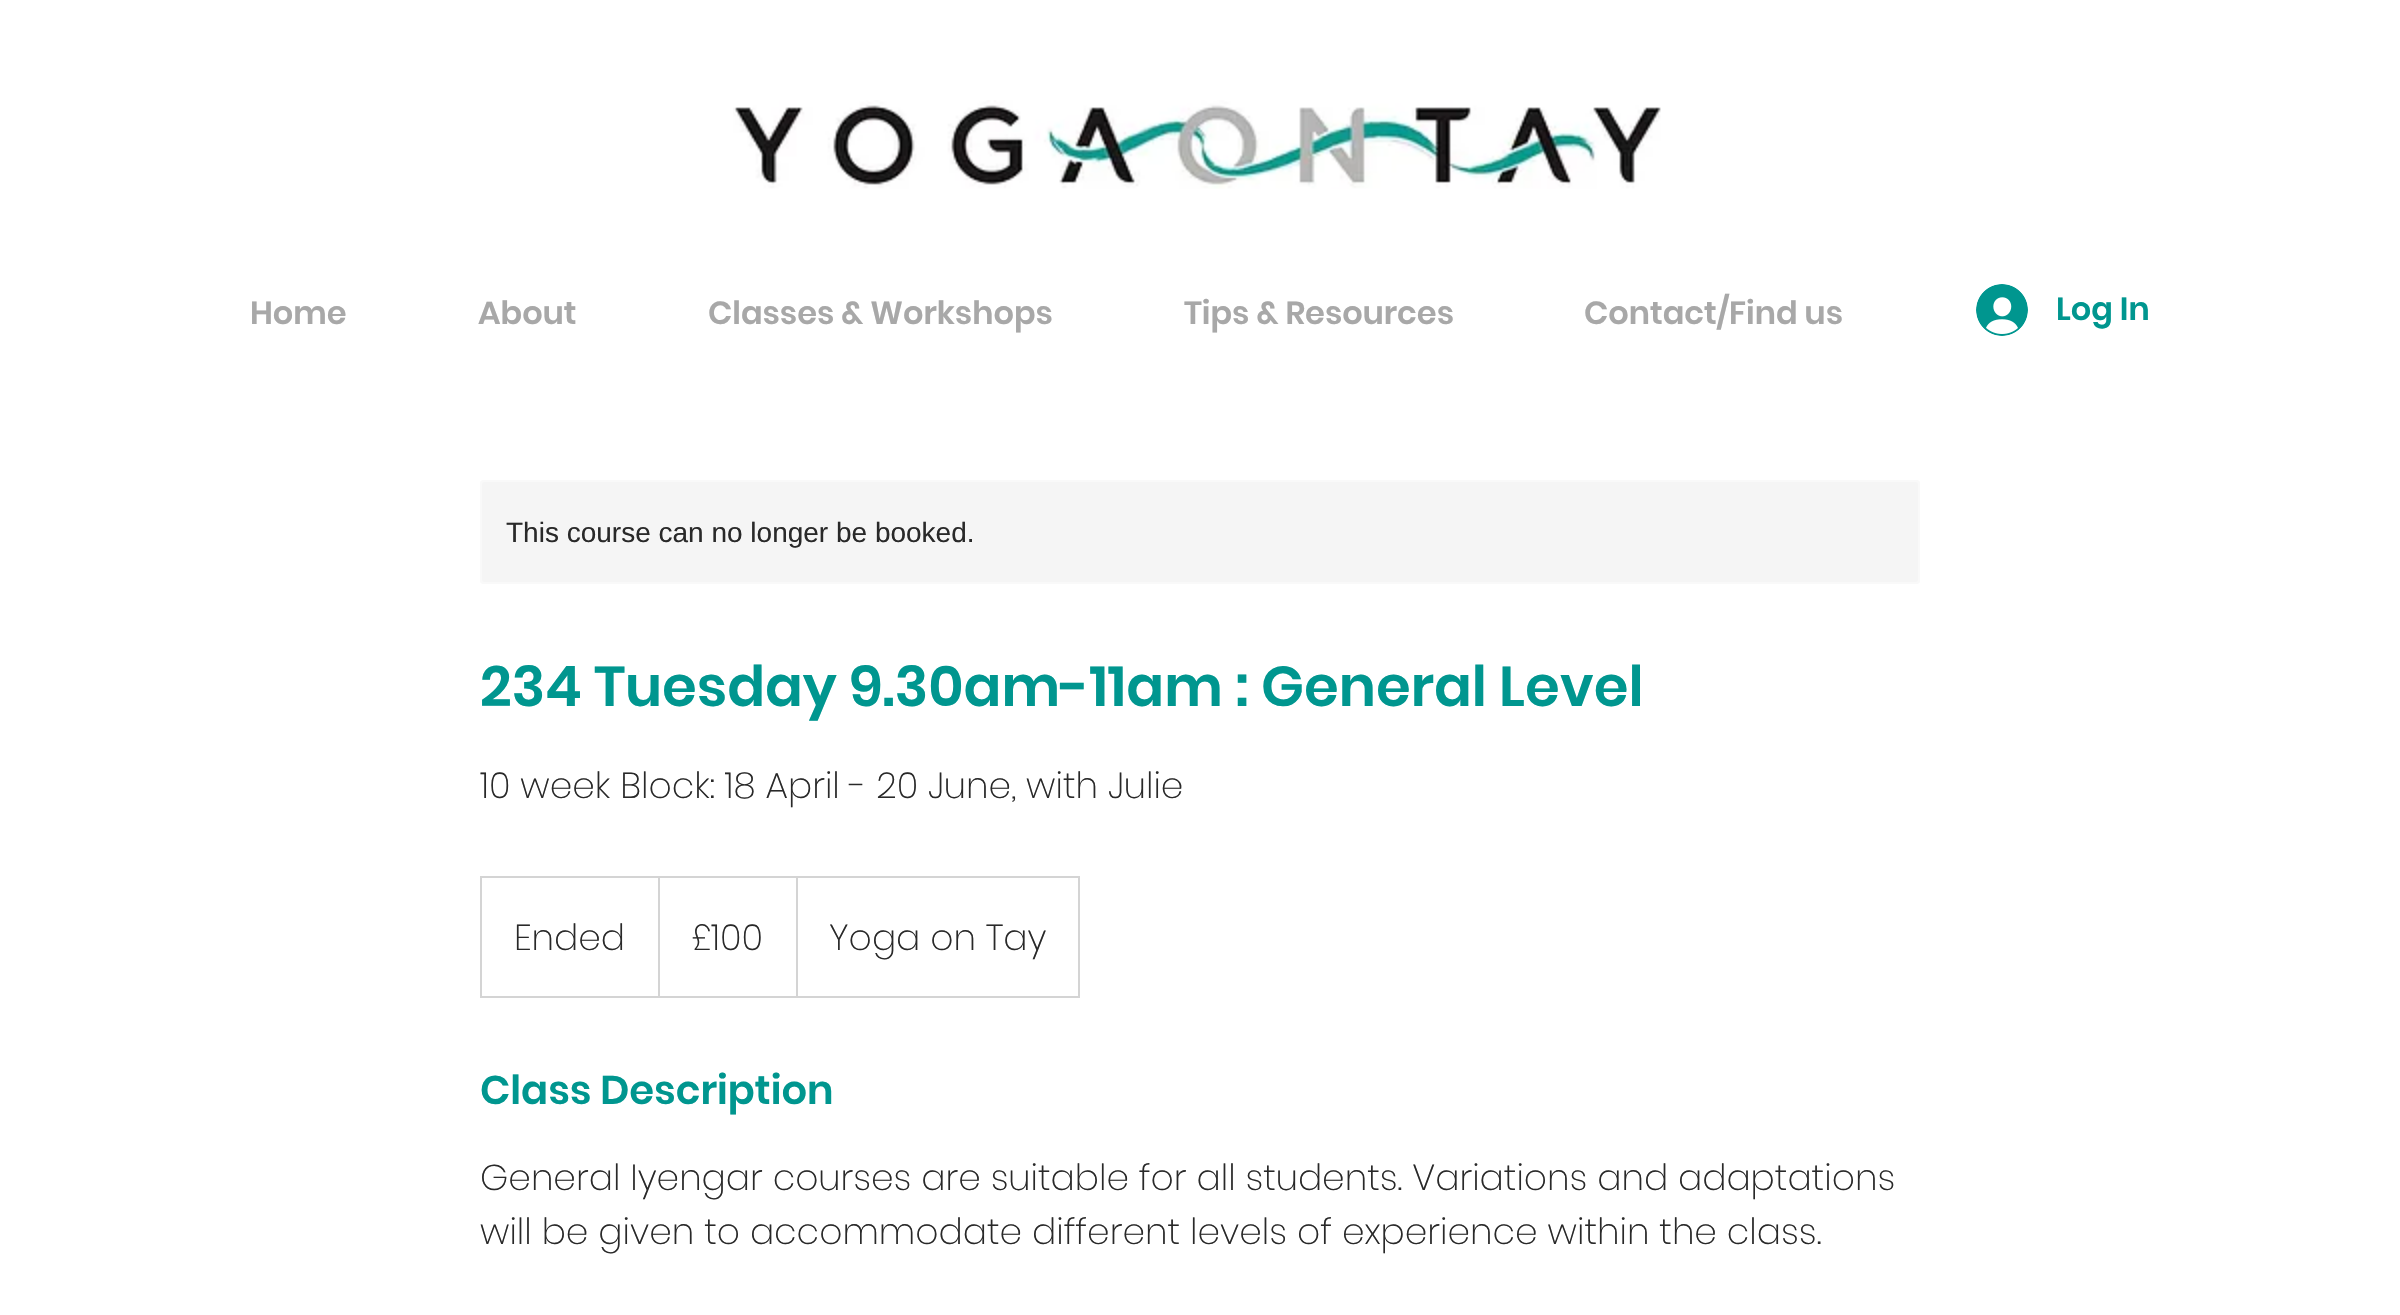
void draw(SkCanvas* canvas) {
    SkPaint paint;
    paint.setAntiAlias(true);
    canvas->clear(0xFFFFFFFF);
    canvas->drawImageRect(SkImages::DeferredFromEncodedData(SkData::MakeFromFileName("img1.png")), SkRect::MakeXYWH(733, 100, 928, 89), SkSamplingOptions());
    SkFont font1(fontMgr->matchFamilyStyle("Poppins", SkFontStyle(600, SkFontStyle::kNormal_Width, SkFontStyle::kUpright_Slant)), 32);
    font1.setSubpixel(true);
    paint.setColor(0xFFA8A8A8);
    canvas->drawString("Home", 250, 324, font1, paint);
    canvas->drawString("About", 478, 324, font1, paint);
    canvas->drawString("Classes & Workshops", 708, 324, font1, paint);
    canvas->drawString("Tips & Resources", 1184, 324, font1, paint);
    canvas->drawString("Contact/Find us", 1584, 324, font1, paint);
    canvas->drawImageRect(SkImages::DeferredFromEncodedData(SkData::MakeFromFileName("img2.png")), SkRect::MakeXYWH(1976, 284, 52, 52), SkSamplingOptions());
    paint.setColor(0xFF00968F);
    canvas->drawString("Log In", 2056, 320, font1, paint);
    paint.setColor(0xFFF5F5F5);
    canvas->drawRoundRect(SkRect::MakeXYWH(480, 480, 1440, 104), 4, 4, paint);
    paint.setStyle(SkPaint::kStroke_Style);
    paint.setStrokeWidth(2);
    paint.setColor(0x66FFFFFF);
    canvas->drawRoundRect(SkRect::MakeXYWH(481, 481, 1438, 102), 3, 3, paint);
    SkFont font2(fontMgr->matchFamilyStyle("Liberation Sans", SkFontStyle::Normal()), 28);
    font2.setSubpixel(true);
    paint.setStyle(SkPaint::kFill_Style);
    paint.setColor(0xFF292929);
    canvas->drawString("This course can no longer be booked.", 506, 542, font2, paint);
    SkFont font3(fontMgr->matchFamilyStyle("Poppins", SkFontStyle(600, SkFontStyle::kNormal_Width, SkFontStyle::kUpright_Slant)), 56);
    font3.setSubpixel(true);
    paint.setColor(0xFF00968F);
    canvas->drawString("234 Tuesday 9.30am-11am : General Level", 480, 706, font3, paint);
    SkFont font4(fontMgr->matchFamilyStyle("Poppins", SkFontStyle(200, SkFontStyle::kNormal_Width, SkFontStyle::kUpright_Slant)), 36);
    font4.setSubpixel(true);
    paint.setColor(0xFF292929);
    canvas->drawString("10 week Block: 18 April - 20 June, with Julie", 480, 798, font4, paint);
    paint.setStyle(SkPaint::kStroke_Style);
    paint.setColor(0xFFD4D4D4);
    canvas->drawRect(SkRect::MakeXYWH(481, 877, 598, 120), paint);
    paint.setStyle(SkPaint::kFill_Style);
    paint.setColor(0xFF292929);
    canvas->drawString("Ended", 514, 950, font4, paint);
    canvas->save();
    canvas->clipRect(SkRect::MakeXYWH(482, 878, 596, 118));
    paint.setColor(0xFFD4D4D4);
    canvas->drawPath(SkPathBuilder().moveTo(658, 996).lineTo(658, 876).lineTo(660, 878).lineTo(660, 996).close().detach(), paint);
    canvas->restore();
    paint.setColor(0xFF292929);
    canvas->drawString("£100", 691, 950, font4, paint);
    canvas->save();
    canvas->clipRect(SkRect::MakeXYWH(482, 878, 596, 118));
    paint.setColor(0xFFD4D4D4);
    canvas->drawPath(SkPathBuilder().moveTo(796, 996).lineTo(796, 876).lineTo(798, 878).lineTo(798, 996).close().detach(), paint);
    canvas->restore();
    paint.setColor(0xFF292929);
    canvas->drawString("Yoga on Tay", 829, 950, font4, paint);
    SkFont font5(fontMgr->matchFamilyStyle("Poppins", SkFontStyle(600, SkFontStyle::kNormal_Width, SkFontStyle::kUpright_Slant)), 40);
    font5.setSubpixel(true);
    paint.setColor(0xFF00968F);
    canvas->drawString("Class Description", 480, 1104, font5, paint);
    paint.setColor(0xFF292929);
    canvas->drawString("General Iyengar courses are suitable for all students. Variations and adaptations", 480, 1190, font4, paint);
    canvas->drawString("will be given to accommodate different levels of experience within the class.", 480, 1244, font4, paint);
}
